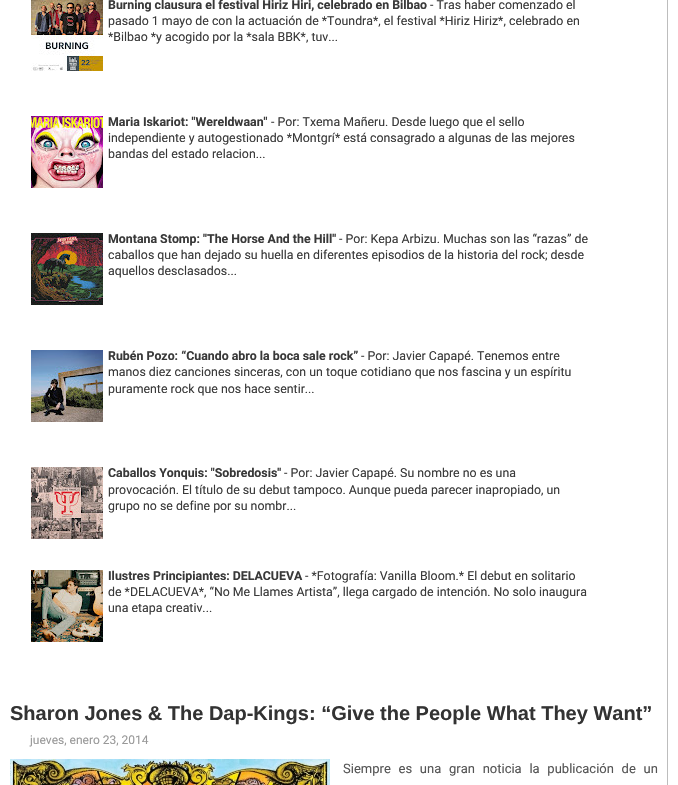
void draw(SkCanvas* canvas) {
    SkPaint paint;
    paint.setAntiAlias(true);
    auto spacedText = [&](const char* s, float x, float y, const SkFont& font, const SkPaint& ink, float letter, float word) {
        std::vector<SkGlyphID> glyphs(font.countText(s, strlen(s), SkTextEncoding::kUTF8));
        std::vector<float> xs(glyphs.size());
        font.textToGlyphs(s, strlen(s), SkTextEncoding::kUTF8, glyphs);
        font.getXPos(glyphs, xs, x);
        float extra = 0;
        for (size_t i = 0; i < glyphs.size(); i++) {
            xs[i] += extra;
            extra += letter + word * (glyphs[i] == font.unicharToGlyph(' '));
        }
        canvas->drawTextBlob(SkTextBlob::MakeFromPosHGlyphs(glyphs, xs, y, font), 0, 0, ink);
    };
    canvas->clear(0xFFFFFFFF);
    paint.setColor(0xFFBDBDBD);
    canvas->drawRect(SkRect::MakeXYWH(667, 0, 1, 785), paint);
    canvas->drawImageRect(SkImages::DeferredFromEncodedData(SkData::MakeFromFileName("img1.png")), SkRect::MakeXYWH(31, 0, 72, 71), SkSamplingOptions());
    SkFont font1(fontMgr->matchFamilyStyle("Roboto", SkFontStyle::Bold()), 12.35f);
    font1.setSubpixel(true);
    paint.setColor(0xFF393939);
    canvas->drawString("Burning clausura el festival Hiriz Hiri, celebrado en Bilbao", 108, 9, font1, paint);
    SkFont font2(fontMgr->matchFamilyStyle("Roboto", SkFontStyle::Normal()), 12.35f);
    font2.setSubpixel(true);
    canvas->drawString("- Tras haber comenzado el", 430, 9, font2, paint);
    canvas->drawString("pasado 1 mayo de con la actuación de *Toundra*, el festival *Hiriz Hiriz*, celebrado en", 108, 25, font2, paint);
    canvas->drawString("*Bilbao *y acogido por la *sala BBK*, tuv...", 108, 41, font2, paint);
    canvas->drawImageRect(SkImages::DeferredFromEncodedData(SkData::MakeFromFileName("img2.png")), SkRect::MakeXYWH(31, 116, 72, 72), SkSamplingOptions());
    canvas->drawString("Maria Iskariot: \"Wereldwaan\"", 108, 126, font1, paint);
    canvas->drawString("- Por: Txema Mañeru. Desde luego que el sello", 271, 126, font2, paint);
    canvas->drawString("independiente y autogestionado *Montgrí* está consagrado a algunas de las mejores", 108, 142, font2, paint);
    canvas->drawString("bandas del estado relacion...", 108, 158, font2, paint);
    canvas->drawImageRect(SkImages::DeferredFromEncodedData(SkData::MakeFromFileName("img3.png")), SkRect::MakeXYWH(31, 233, 72, 72), SkSamplingOptions());
    canvas->drawString("Montana Stomp: \"The Horse And the Hill\"", 108, 243, font1, paint);
    canvas->drawString("- Por: Kepa Arbizu. Muchas son las “razas” de", 339, 243, font2, paint);
    canvas->drawString("caballos que han dejado su huella en diferentes episodios de la historia del rock; desde", 108, 259, font2, paint);
    canvas->drawString("aquellos desclasados...", 108, 275, font2, paint);
    canvas->drawImageRect(SkImages::DeferredFromEncodedData(SkData::MakeFromFileName("img4.png")), SkRect::MakeXYWH(31, 350, 72, 72), SkSamplingOptions());
    canvas->drawString("Rubén Pozo: “Cuando abro la boca sale rock”", 108, 360, font1, paint);
    canvas->drawString("- Por: Javier Capapé. Tenemos entre", 361, 360, font2, paint);
    canvas->drawString("manos diez canciones sinceras, con un toque cotidiano que nos fascina y un espíritu", 108, 376, font2, paint);
    canvas->drawString("puramente rock que nos hace sentir...", 108, 393, font2, paint);
    canvas->drawImageRect(SkImages::DeferredFromEncodedData(SkData::MakeFromFileName("img5.png")), SkRect::MakeXYWH(31, 467, 72, 72), SkSamplingOptions());
    canvas->drawString("Caballos Yonquis: \"Sobredosis\"", 108, 477, font1, paint);
    canvas->drawString("- Por: Javier Capapé. Su nombre no es una", 284, 477, font2, paint);
    canvas->drawString("provocación. El título de su debut tampoco. Aunque pueda parecer inapropiado, un", 108, 494, font2, paint);
    canvas->drawString("grupo no se define por su nombr...", 108, 510, font2, paint);
    canvas->drawImageRect(SkImages::DeferredFromEncodedData(SkData::MakeFromFileName("img6.png")), SkRect::MakeXYWH(31, 570, 72, 72), SkSamplingOptions());
    canvas->drawString("Ilustres Principiantes: DELACUEVA", 108, 580, font1, paint);
    canvas->drawString("- *Fotografía: Vanilla Bloom.* El debut en solitario", 305, 580, font2, paint);
    canvas->drawString("de *DELACUEVA*, “No Me Llames Artista”, llega cargado de intención. No solo inaugura", 108, 596, font2, paint);
    canvas->drawString("una etapa creativ...", 108, 612, font2, paint);
    SkFont font3(fontMgr->matchFamilyStyle("Liberation Sans", SkFontStyle::Bold()), 20);
    font3.setSubpixel(true);
    paint.setColor(0xFF333333);
    canvas->drawString("Sharon Jones & The Dap-Kings: “Give the People What They Want”", 10, 720, font3, paint);
    SkFont font4(fontMgr->matchFamilyStyle("Roboto", SkFontStyle::Normal()), 12);
    font4.setSubpixel(true);
    paint.setColor(0xFF999999);
    canvas->drawString("jueves, enero 23, 2014", 30, 744, font4, paint);
    canvas->drawImageRect(SkImages::DeferredFromEncodedData(SkData::MakeFromFileName("img7.png")), SkRect::MakeXYWH(10, 759, 320, 26), SkSamplingOptions());
    SkFont font5(fontMgr->matchFamilyStyle("Roboto", SkFontStyle::Normal()), 13);
    font5.setSubpixel(true);
    paint.setColor(0xFF555555);
    spacedText("Siempre es una gran noticia la publicación de un", 343, 773, font5, paint, 0, 4.5f);
}
